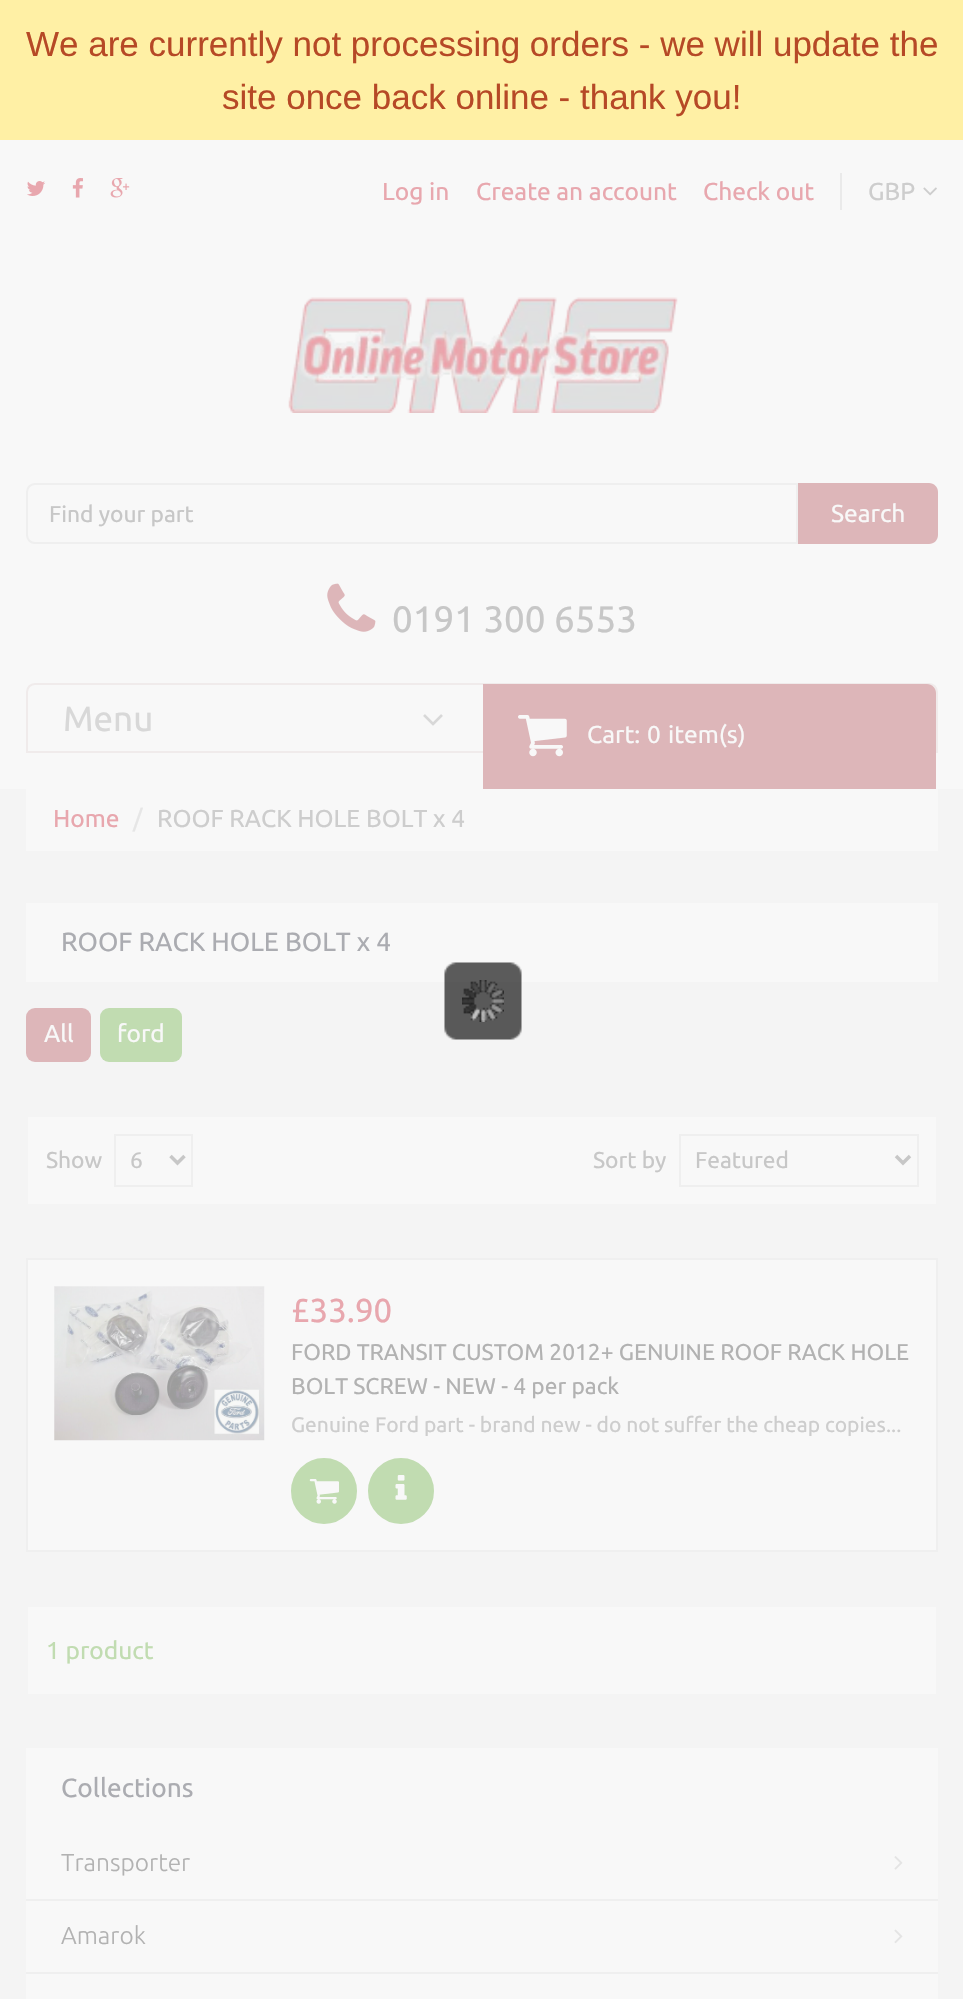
void draw(SkCanvas* canvas) {
    SkPaint paint;
    paint.setAntiAlias(true);
    canvas->clear(0xFFF4F4F4);
    paint.setColor(0xFFFFF0A5);
    canvas->drawRect(SkRect::MakeXYWH(0, 0, 963, 140), paint);
    SkFont font1(fontMgr->matchFamilyStyle("Liberation Sans", SkFontStyle::Normal()), 35);
    font1.setSubpixel(true);
    paint.setColor(0xFFB64926);
    canvas->drawString("We are currently not processing orders - we will update the", 26, 56, font1, paint);
    canvas->drawString("site once back online - thank you!", 222, 109, font1, paint);
    paint.setColor(0xFFF8F8F8);
    canvas->drawRect(SkRect::MakeXYWH(0, 140, 963, 649), paint);
    canvas->drawImageRect(SkImages::DeferredFromEncodedData(SkData::MakeFromFileName("img1.png")), SkRect::MakeXYWH(27, 181, 19, 15), SkSamplingOptions());
    canvas->drawImageRect(SkImages::DeferredFromEncodedData(SkData::MakeFromFileName("img2.png")), SkRect::MakeXYWH(72, 178, 11, 20), SkSamplingOptions());
    canvas->drawImageRect(SkImages::DeferredFromEncodedData(SkData::MakeFromFileName("img3.png")), SkRect::MakeXYWH(110, 178, 20, 20), SkSamplingOptions());
    paint.setColor(0xFFEAEAEA);
    canvas->drawRect(SkRect::MakeXYWH(840, 173, 2, 37), paint);
    SkFont font2(fontMgr->matchFamilyStyle("Ubuntu", SkFontStyle::Normal()), 24.5f);
    font2.setSubpixel(true);
    paint.setColor(0xFFE8A7AE);
    canvas->drawString("Log in", 382, 200, font2, paint);
    canvas->drawString("Create an account", 476, 200, font2, paint);
    canvas->drawString("Check out", 703, 200, font2, paint);
    paint.setColor(0xFFCDCDCD);
    canvas->drawString("GBP", 868, 200, font2, paint);
    canvas->drawImageRect(SkImages::DeferredFromEncodedData(SkData::MakeFromFileName("img4.png")), SkRect::MakeXYWH(923, 187, 14, 9), SkSamplingOptions());
    canvas->drawImageRect(SkImages::DeferredFromEncodedData(SkData::MakeFromFileName("img5.png")), SkRect::MakeXYWH(288, 297, 390, 116), SkSamplingOptions());
    paint.setStyle(SkPaint::kStroke_Style);
    paint.setStrokeWidth(2);
    paint.setColor(0xFFEFEFEF);
    canvas->drawPath(SkPathBuilder().moveTo(35, 484).lineTo(797, 484).lineTo(797, 543).lineTo(35, 543).cubicTo(30.5f, 543, 27, 539.5f, 27, 535).lineTo(27, 492).cubicTo(27, 487.5f, 30.5f, 484, 35, 484).close().detach(), paint);
    SkFont font3(fontMgr->matchFamilyStyle("Ubuntu", SkFontStyle::Normal()), 22.75f);
    font3.setSubpixel(true);
    paint.setStyle(SkPaint::kFill_Style);
    paint.setColor(0xFFC7C7C7);
    canvas->drawString("Find your part", 49, 522, font3, paint);
    paint.setColor(0xFFDDB6B9);
    canvas->drawPath(SkPathBuilder().moveTo(798, 483).lineTo(929, 483).cubicTo(934, 483, 938, 487, 938, 492).lineTo(938, 535).cubicTo(938, 540, 934, 544, 929, 544).lineTo(798, 544).close().detach(), paint);
    paint.setColor(0xFFF8F8F8);
    canvas->drawString("Search", 831, 522, font2, paint);
    canvas->drawImageRect(SkImages::DeferredFromEncodedData(SkData::MakeFromFileName("img6.png")), SkRect::MakeXYWH(327, 583, 49, 49), SkSamplingOptions());
    SkFont font4(fontMgr->matchFamilyStyle("Ubuntu", SkFontStyle::Normal()), 36.75f);
    font4.setSubpixel(true);
    paint.setColor(0xFFC7C7C7);
    canvas->drawString("0191 300 6553", 392, 632, font4, paint);
    paint.setStyle(SkPaint::kStroke_Style);
    paint.setColor(0xFFF0EBEB);
    canvas->drawPath(SkPathBuilder().moveTo(35, 684).lineTo(929, 684).cubicTo(933.5f, 684, 937, 687.5f, 937, 692).lineTo(937, 752).lineTo(27, 752).lineTo(27, 692).cubicTo(27, 687.5f, 30.5f, 684, 35, 684).close().detach(), paint);
    SkFont font5(fontMgr->matchFamilyStyle("Ubuntu", SkFontStyle::Normal()), 35);
    font5.setSubpixel(true);
    paint.setStyle(SkPaint::kFill_Style);
    paint.setColor(0xFFD8D8D8);
    canvas->drawString("Menu", 63, 731, font5, paint);
    canvas->drawImageRect(SkImages::DeferredFromEncodedData(SkData::MakeFromFileName("img7.png")), SkRect::MakeXYWH(423, 714, 20, 12), SkSamplingOptions());
    paint.setColor(0xFFDDB6B9);
    canvas->drawPath(SkPathBuilder().moveTo(483, 684).lineTo(927, 684).cubicTo(932, 684, 936, 688, 936, 693).lineTo(936, 789).lineTo(483, 789).close().detach(), paint);
    canvas->drawImageRect(SkImages::DeferredFromEncodedData(SkData::MakeFromFileName("img8.png")), SkRect::MakeXYWH(518, 715, 49, 42), SkSamplingOptions());
    paint.setColor(0xFFF8F8F8);
    canvas->drawString("Cart:", 587, 743, font2, paint);
    canvas->drawString("0", 647, 743, font2, paint);
    canvas->drawString("item(s)", 668, 743, font2, paint);
    canvas->drawRect(SkRect::MakeXYWH(26, 789, 912, 62), paint);
    paint.setColor(0xFFE8A7AE);
    canvas->drawString("Home", 53, 827, font2, paint);
    paint.setColor(0xFFE6E6E6);
    canvas->drawString("/", 133, 827, font2, paint);
    paint.setColor(0xFFCDCDCD);
    canvas->drawString("ROOF RACK HOLE BOLT x 4", 157, 827, font2, paint);
    paint.setColor(0xFFF8F8F8);
    canvas->drawRect(SkRect::MakeXYWH(26, 903, 912, 79), paint);
    SkFont font6(fontMgr->matchFamilyStyle("Ubuntu", SkFontStyle::Normal()), 26.25f);
    font6.setSubpixel(true);
    paint.setColor(0xFFABACB1);
    canvas->drawString("ROOF RACK HOLE BOLT x 4", 61, 951, font6, paint);
    paint.setColor(0xFFDDB6B9);
    canvas->drawRoundRect(SkRect::MakeXYWH(26, 1008, 65, 54), 9, 9, paint);
    paint.setColor(0xFFF8F8F8);
    canvas->drawString("All", 44, 1042, font2, paint);
    paint.setColor(0xFFC1DCB1);
    canvas->drawRoundRect(SkRect::MakeXYWH(100, 1008, 82, 54), 9, 9, paint);
    paint.setColor(0xFFF8F8F8);
    canvas->drawString("ford", 117, 1042, font2, paint);
    canvas->drawRect(SkRect::MakeXYWH(28, 1117, 908, 87), paint);
    paint.setColor(0xFFC7C7C7);
    canvas->drawString("Show", 46, 1168, font3, paint);
    paint.setStyle(SkPaint::kStroke_Style);
    paint.setColor(0xFFEFEFEF);
    canvas->drawRect(SkRect::MakeXYWH(115, 1135, 77, 51), paint);
    paint.setStrokeWidth(3.5f);
    paint.setColor(0xFFC7C7C7);
    canvas->drawPath(SkPathBuilder().moveTo(170.5f, 1156).lineTo(177.5f, 1163).lineTo(184.5f, 1156).detach(), paint);
    paint.setStyle(SkPaint::kFill_Style);
    canvas->drawString("6", 130, 1168, font3, paint);
    canvas->drawString("Sort by", 593, 1168, font3, paint);
    paint.setStyle(SkPaint::kStroke_Style);
    paint.setStrokeWidth(2);
    paint.setColor(0xFFEFEFEF);
    canvas->drawRect(SkRect::MakeXYWH(680, 1135, 238, 51), paint);
    paint.setStrokeWidth(3.5f);
    paint.setColor(0xFFC7C7C7);
    canvas->drawPath(SkPathBuilder().moveTo(896, 1156).lineTo(903, 1163).lineTo(910, 1156).detach(), paint);
    paint.setStyle(SkPaint::kFill_Style);
    canvas->drawString("Featured", 695, 1168, font3, paint);
    paint.setColor(0xFFF8F8F8);
    canvas->drawRect(SkRect::MakeXYWH(27, 1259, 910, 292), paint);
    paint.setStyle(SkPaint::kStroke_Style);
    paint.setStrokeWidth(2);
    paint.setColor(0xFFEFEFEF);
    canvas->drawRect(SkRect::MakeXYWH(27, 1259, 910, 292), paint);
    canvas->drawImageRect(SkImages::DeferredFromEncodedData(SkData::MakeFromFileName("img9.png")), SkRect::MakeXYWH(54, 1286, 211, 155), SkSamplingOptions());
    SkFont font7(fontMgr->matchFamilyStyle("Ubuntu", SkFontStyle::Normal()), 33);
    font7.setSubpixel(true);
    paint.setStyle(SkPaint::kFill_Style);
    paint.setColor(0xFFE8A7AE);
    canvas->drawString("£33.90", 291, 1322, font7, paint);
    paint.setColor(0xFFB2B2B2);
    canvas->drawString("FORD TRANSIT CUSTOM 2012+ GENUINE ROOF RACK HOLE", 291, 1360, font3, paint);
    canvas->drawString("BOLT SCREW - NEW - 4 per pack", 291, 1394, font3, paint);
    SkFont font8(fontMgr->matchFamilyStyle("Ubuntu", SkFontStyle::Normal()), 21);
    font8.setSubpixel(true);
    paint.setColor(0xFFCDCDCD);
    canvas->drawString("Genuine Ford part - brand new - do not suffer the cheap copies...", 291, 1432, font8, paint);
    paint.setColor(0xFFC1DCB1);
    canvas->drawCircle(324, 1491, 32, paint);
    paint.setStyle(SkPaint::kStroke_Style);
    canvas->drawCircle(324, 1491, 32, paint);
    canvas->drawImageRect(SkImages::DeferredFromEncodedData(SkData::MakeFromFileName("img10.png")), SkRect::MakeXYWH(309, 1479, 30, 25), SkSamplingOptions());
    paint.setStyle(SkPaint::kFill_Style);
    canvas->drawCircle(401, 1491, 32, paint);
    paint.setStyle(SkPaint::kStroke_Style);
    canvas->drawCircle(401, 1491, 32, paint);
    canvas->drawImageRect(SkImages::DeferredFromEncodedData(SkData::MakeFromFileName("img11.png")), SkRect::MakeXYWH(395, 1475, 12, 25), SkSamplingOptions());
    paint.setStyle(SkPaint::kFill_Style);
    paint.setColor(0xFFF8F8F8);
    canvas->drawRect(SkRect::MakeXYWH(28, 1607, 908, 87), paint);
    paint.setColor(0xFFC1DCB1);
    canvas->drawString("1 product", 46, 1659, font2, paint);
    paint.setColor(0xFFF8F8F8);
    canvas->drawRect(SkRect::MakeXYWH(26, 1748, 912, 151), paint);
    paint.setColor(0xFFABACB1);
    canvas->drawString("Collections", 61, 1797, font6, paint);
    SkFont font9(fontMgr->matchFamilyStyle("Ubuntu", SkFontStyle(300, SkFontStyle::kNormal_Width, SkFontStyle::kUpright_Slant)), 24.5f);
    font9.setSubpixel(true);
    paint.setColor(0xFFB2B2B2);
    canvas->drawString("Transporter", 61, 1871, font9, paint);
    canvas->drawImageRect(SkImages::DeferredFromEncodedData(SkData::MakeFromFileName("img12.png")), SkRect::MakeXYWH(894, 1856, 9, 14), SkSamplingOptions());
    paint.setColor(0xFFF8F8F8);
    canvas->drawRect(SkRect::MakeXYWH(26, 1901, 912, 71), paint);
    paint.setColor(0xFFEFEFEF);
    canvas->drawRect(SkRect::MakeXYWH(26, 1899, 912, 2), paint);
    paint.setColor(0xFFB2B2B2);
    canvas->drawString("Amarok", 61, 1944, font9, paint);
    canvas->drawImageRect(SkImages::DeferredFromEncodedData(SkData::MakeFromFileName("img13.png")), SkRect::MakeXYWH(894, 1929, 9, 15), SkSamplingOptions());
    paint.setColor(0xFFF8F8F8);
    canvas->drawRect(SkRect::MakeXYWH(26, 1974, 912, 25), paint);
    paint.setColor(0xFFEFEFEF);
    canvas->drawRect(SkRect::MakeXYWH(26, 1972, 912, 2), paint);
    canvas->drawImageRect(SkImages::DeferredFromEncodedData(SkData::MakeFromFileName("img14.png")), SkRect::MakeXYWH(444, 962, 78, 78), SkSamplingOptions());
    canvas->drawImageRect(SkImages::DeferredFromEncodedData(SkData::MakeFromFileName("img15.png")), SkRect::MakeXYWH(462, 980, 42, 42), SkSamplingOptions());
}
